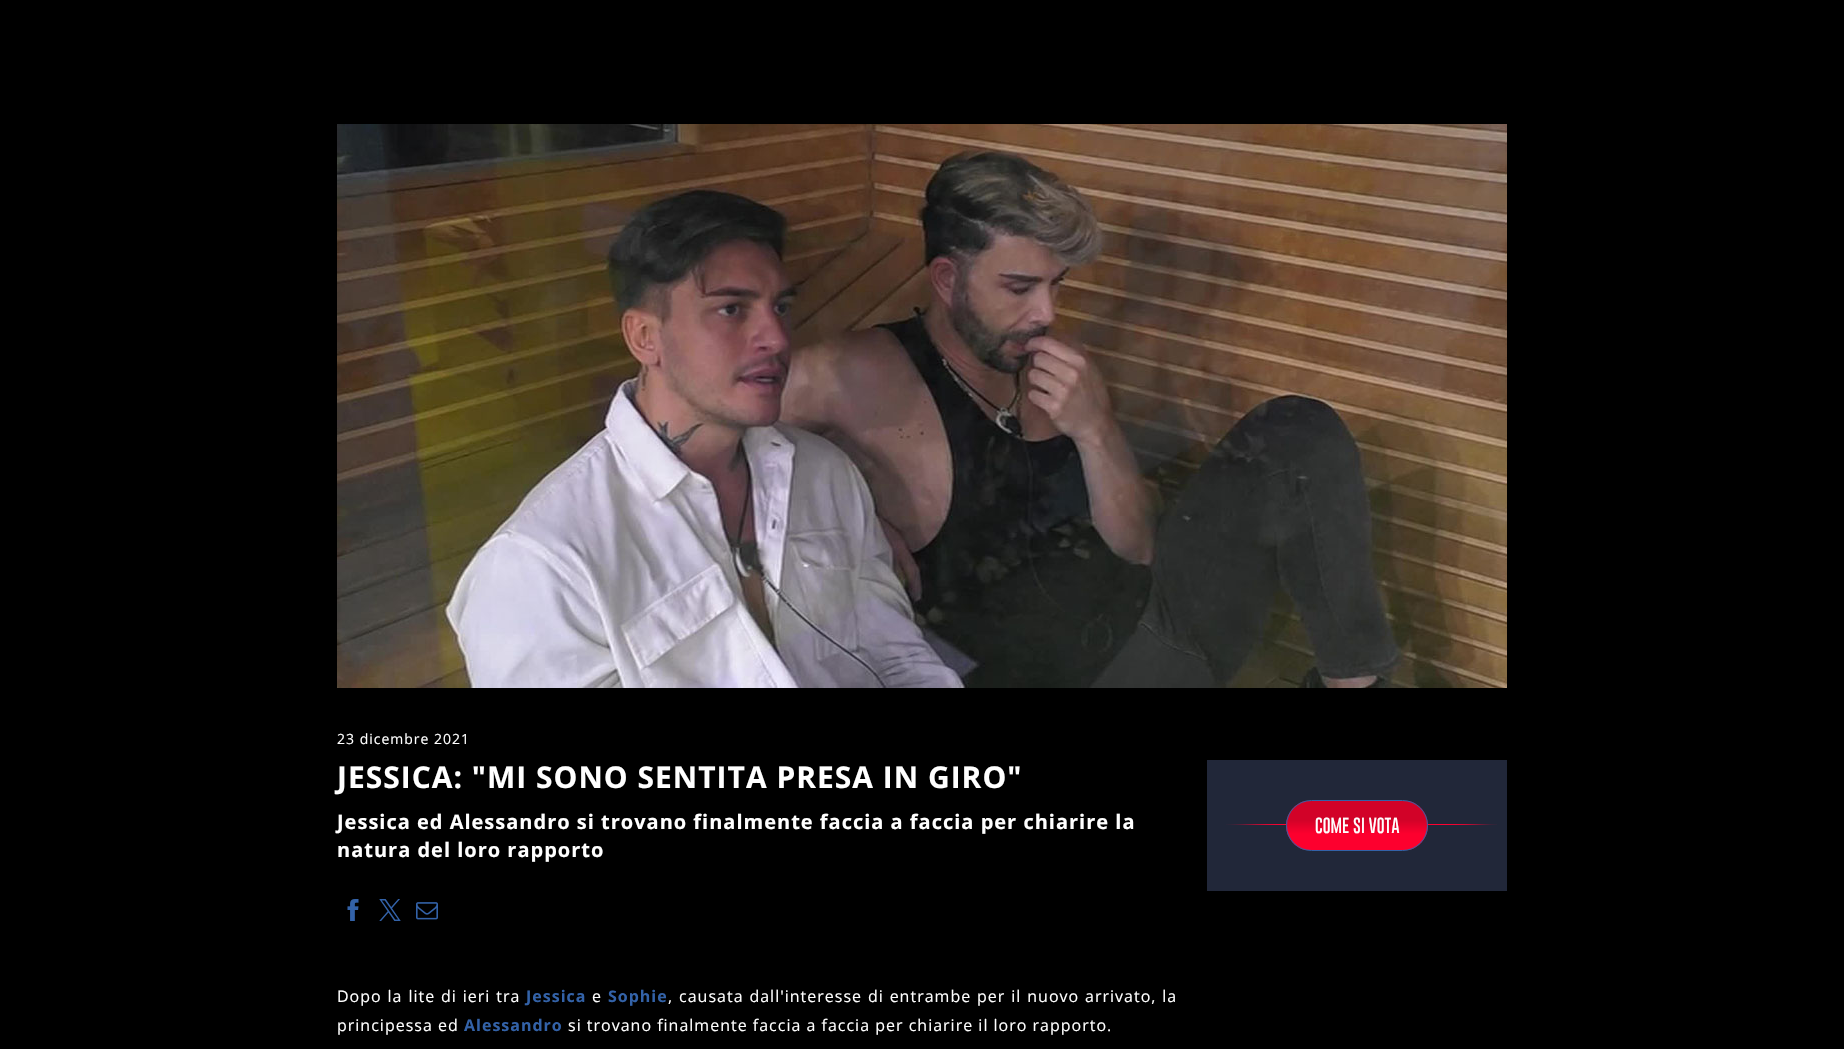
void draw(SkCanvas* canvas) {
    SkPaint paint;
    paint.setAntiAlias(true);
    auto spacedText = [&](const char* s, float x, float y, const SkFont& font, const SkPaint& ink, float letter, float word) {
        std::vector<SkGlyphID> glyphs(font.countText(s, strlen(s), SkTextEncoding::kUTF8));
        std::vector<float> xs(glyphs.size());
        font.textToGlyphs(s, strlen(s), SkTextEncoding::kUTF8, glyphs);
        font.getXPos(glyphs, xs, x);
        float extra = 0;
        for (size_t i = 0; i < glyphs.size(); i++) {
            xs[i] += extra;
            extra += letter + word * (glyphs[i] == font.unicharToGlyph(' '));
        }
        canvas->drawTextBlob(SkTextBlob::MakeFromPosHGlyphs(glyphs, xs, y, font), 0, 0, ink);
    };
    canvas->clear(0xFF000000);
    canvas->drawImageRect(SkImages::DeferredFromEncodedData(SkData::MakeFromFileName("img1.png")), SkRect::MakeXYWH(337, 124, 1170, 564), SkSamplingOptions());
    SkFont font1(fontMgr->matchFamilyStyle("Open Sans", SkFontStyle::Normal()), 14);
    font1.setSubpixel(true);
    paint.setColor(0xFFFFFFFF);
    spacedText("23 dicembre 2021", 337, 744, font1, paint, 1, 0);
    SkFont font2(fontMgr->matchFamilyStyle("Open Sans", SkFontStyle::Bold()), 30);
    font2.setSubpixel(true);
    spacedText("JESSICA: \"MI SONO SENTITA PRESA IN GIRO\"", 337, 788, font2, paint, 1, 0);
    SkFont font3(fontMgr->matchFamilyStyle("Open Sans", SkFontStyle::Bold()), 20);
    font3.setSubpixel(true);
    spacedText("Jessica ed Alessandro si trovano finalmente faccia a faccia per chiarire la", 337, 829, font3, paint, 1, 0);
    spacedText("natura del loro rapporto", 337, 857, font3, paint, 1, 0);
    canvas->drawImageRect(SkImages::DeferredFromEncodedData(SkData::MakeFromFileName("img2.png")), SkRect::MakeXYWH(347, 899, 12, 22), SkSamplingOptions());
    canvas->drawImageRect(SkImages::DeferredFromEncodedData(SkData::MakeFromFileName("img3.png")), SkRect::MakeXYWH(379, 899, 22, 22), SkSamplingOptions());
    canvas->drawImageRect(SkImages::DeferredFromEncodedData(SkData::MakeFromFileName("img4.png")), SkRect::MakeXYWH(416, 902, 22, 18), SkSamplingOptions());
    SkFont font4(fontMgr->matchFamilyStyle("Open Sans", SkFontStyle::Normal()), 16);
    font4.setSubpixel(true);
    spacedText("Dopo la lite di ieri tra", 337, 1002, font4, paint, 1, 0.75f);
    SkFont font5(fontMgr->matchFamilyStyle("Open Sans", SkFontStyle::Bold()), 16);
    font5.setSubpixel(true);
    paint.setColor(0xFF3362A8);
    spacedText("Jessica", 526, 1002, font5, paint, 1, 0);
    paint.setColor(0xFFFFFFFF);
    spacedText("e", 592, 1002, font4, paint, 1, 0);
    paint.setColor(0xFF3362A8);
    spacedText("Sophie", 608, 1002, font5, paint, 1, 0);
    paint.setColor(0xFFFFFFFF);
    spacedText(", causata dall'interesse di entrambe per il nuovo arrivato, la", 668, 1002, font4, paint, 1, 0.75f);
    spacedText("principessa ed", 337, 1031, font4, paint, 1, 0);
    paint.setColor(0xFF3362A8);
    spacedText("Alessandro", 464, 1031, font5, paint, 1, 0);
    paint.setColor(0xFFFFFFFF);
    spacedText("si trovano finalmente faccia a faccia per chiarire il loro rapporto.", 568, 1031, font4, paint, 1, 0);
    paint.setColor(0xFF212739);
    canvas->drawRect(SkRect::MakeXYWH(1207, 760, 300, 131), paint);
    canvas->drawImageRect(SkImages::DeferredFromEncodedData(SkData::MakeFromFileName("img5.png")), SkRect::MakeXYWH(1226, 824, 271, 1), SkSamplingOptions());
    canvas->save();
    canvas->clipPath(SkPathBuilder().moveTo(1311.5f, 800).lineTo(1402.5f, 800).cubicTo(1416.5f, 800, 1428, 811.5f, 1428, 825.5f).cubicTo(1428, 839.5f, 1416.5f, 851, 1402.5f, 851).lineTo(1311.5f, 851).cubicTo(1297.5f, 851, 1286, 839.5f, 1286, 825.5f).cubicTo(1286, 811.5f, 1297.5f, 800, 1311.5f, 800).close().detach(), true);
    {
        const SkColor colors[] = {0xFFD20228, 0xFFD20228, 0xFFFD002E, 0xFFFD002E};
        const float stops[] = {0.32f, 0.39f, 0.67f, 1};
        const SkPoint ends[] = {{1357, 801}, {1357, 850}};
        paint.setShader(SkGradientShader::MakeLinear(ends, colors, stops, 4, SkTileMode::kClamp));
        paint.setAlpha(255);
    }
    canvas->drawRect(SkRect::MakeXYWH(1286, 801, 142, 49), paint);
    canvas->restore();
    paint.setStyle(SkPaint::kStroke_Style);
    paint.setStrokeWidth(1);
    paint.setShader(nullptr);
    paint.setColor(0xFF3362A8);
    canvas->drawRoundRect(SkRect::MakeXYWH(1286.5f, 800.5f, 141, 50), 25, 25, paint);
    SkFont font6(fontMgr->matchFamilyStyle("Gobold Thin", SkFontStyle(100, SkFontStyle::kNormal_Width, SkFontStyle::kUpright_Slant)), 16);
    font6.setSubpixel(true);
    paint.setStyle(SkPaint::kFill_Style);
    paint.setColor(0xFFFFFFFF);
    canvas->drawString("COME SI VOTA", 1315, 833, font6, paint);
}
